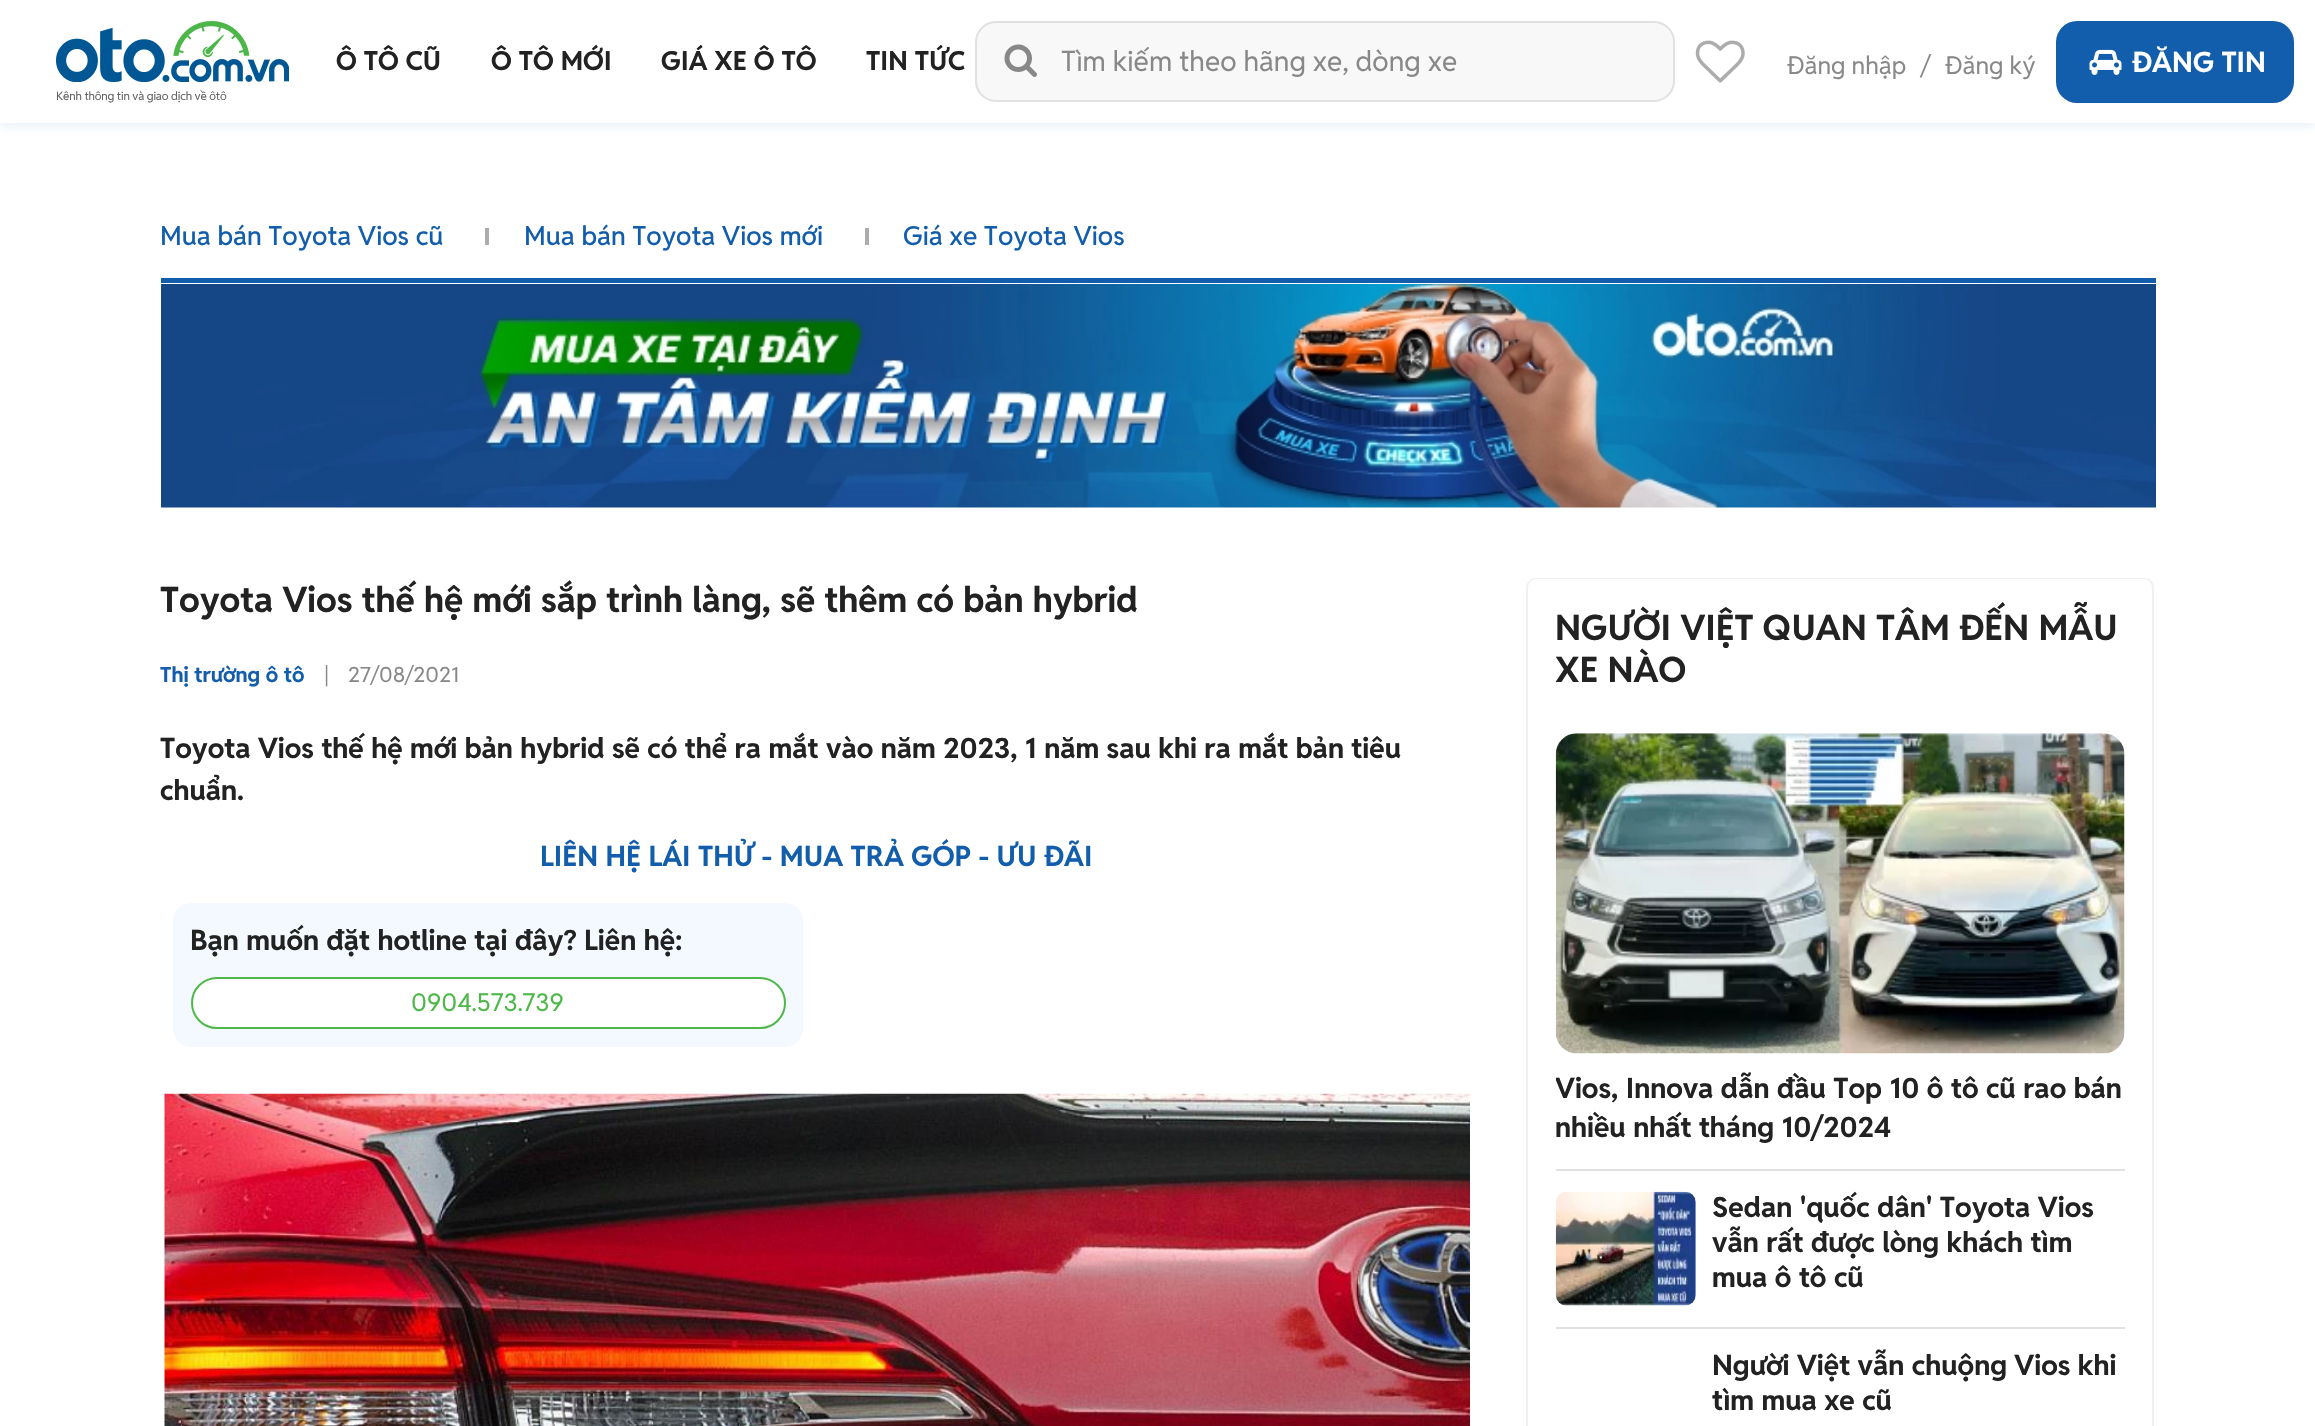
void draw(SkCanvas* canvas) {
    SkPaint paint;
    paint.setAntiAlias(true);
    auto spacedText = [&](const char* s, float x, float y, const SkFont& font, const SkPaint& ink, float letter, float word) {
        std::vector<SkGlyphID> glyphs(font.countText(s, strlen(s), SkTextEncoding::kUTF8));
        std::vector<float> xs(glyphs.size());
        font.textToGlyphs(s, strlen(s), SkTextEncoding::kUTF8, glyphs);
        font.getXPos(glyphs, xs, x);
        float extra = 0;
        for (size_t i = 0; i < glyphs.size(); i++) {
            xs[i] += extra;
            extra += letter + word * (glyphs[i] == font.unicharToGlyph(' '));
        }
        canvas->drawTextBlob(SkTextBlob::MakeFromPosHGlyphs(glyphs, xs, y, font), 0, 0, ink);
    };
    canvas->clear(0xFFFFFFFF);
    paint.setColor(0x1A135EAC);
    paint.setMaskFilter(SkMaskFilter::MakeBlur(kNormal_SkBlurStyle, 5));
    canvas->drawRect(SkRect::MakeXYWH(0, 4, 2315, 122), paint);
    paint.setMaskFilter(nullptr);
    paint.setColor(0xFFFFFFFF);
    canvas->drawRect(SkRect::MakeXYWH(0, 0, 2315, 123), paint);
    SkFont font1(fontMgr->matchFamilyStyle("Reddit Sans", SkFontStyle::Bold()), 26.25f);
    font1.setSubpixel(true);
    paint.setColor(0xFF222222);
    canvas->drawString("Ô TÔ CŨ", 336, 70, font1, paint);
    canvas->drawString("Ô TÔ MỚI", 491, 70, font1, paint);
    canvas->drawString("GIÁ XE Ô TÔ", 661, 70, font1, paint);
    canvas->drawString("TIN TỨC", 866, 70, font1, paint);
    paint.setColor(0xFFF8F8F8);
    canvas->drawRoundRect(SkRect::MakeXYWH(976, 22, 698, 79), 20, 20, paint);
    paint.setStyle(SkPaint::kStroke_Style);
    paint.setStrokeWidth(2);
    paint.setColor(0xFFE1E1E1);
    canvas->drawRoundRect(SkRect::MakeXYWH(976, 22, 698, 79), 20, 20, paint);
    canvas->drawImageRect(SkImages::DeferredFromEncodedData(SkData::MakeFromFileName("img1.png")), SkRect::MakeXYWH(1004, 44, 33, 33), SkSamplingOptions());
    SkFont font2(fontMgr->matchFamilyStyle("Reddit Sans", SkFontStyle::Normal()), 28);
    font2.setSubpixel(true);
    paint.setStyle(SkPaint::kFill_Style);
    paint.setColor(0xFF888888);
    canvas->drawString("Tìm kiếm theo hãng xe, dòng xe", 1061, 71, font2, paint);
    canvas->drawImageRect(SkImages::DeferredFromEncodedData(SkData::MakeFromFileName("img2.png")), SkRect::MakeXYWH(1695, 40, 50, 43), SkSamplingOptions());
    SkFont font3(fontMgr->matchFamilyStyle("Reddit Sans", SkFontStyle::Normal()), 24.5f);
    font3.setSubpixel(true);
    canvas->drawString("Đăng nhập", 1787, 74, font3, paint);
    canvas->drawString("/", 1921, 74, font3, paint);
    canvas->drawString("Đăng ký", 1945, 74, font3, paint);
    paint.setColor(0xFF135EAC);
    canvas->drawRoundRect(SkRect::MakeXYWH(2056, 21, 238, 82), 21, 21, paint);
    canvas->drawImageRect(SkImages::DeferredFromEncodedData(SkData::MakeFromFileName("img3.png")), SkRect::MakeXYWH(2089, 49, 33, 26), SkSamplingOptions());
    SkFont font4(fontMgr->matchFamilyStyle("Reddit Sans", SkFontStyle::Bold()), 28);
    font4.setSubpixel(true);
    paint.setColor(0xFFFFFFFF);
    canvas->drawString("ĐĂNG TIN", 2132, 72, font4, paint);
    canvas->drawImageRect(SkImages::DeferredFromEncodedData(SkData::MakeFromFileName("img4.png")), SkRect::MakeXYWH(56, 21, 233, 61), SkSamplingOptions());
    SkFont font5(fontMgr->matchFamilyStyle("Reddit Sans", SkFontStyle::Normal()), 11.5f);
    font5.setSubpixel(true);
    paint.setColor(0xFF646464);
    spacedText("Kênh thông tin và giao dịch về ôtô", 56, 100, font5, paint, -0.15f, 0);
    paint.setColor(0xFF135EAC);
    canvas->drawRect(SkRect::MakeXYWH(161, 278, 1995, 5), paint);
    SkFont font6(fontMgr->matchFamilyStyle("Reddit Sans", SkFontStyle(500, SkFontStyle::kNormal_Width, SkFontStyle::kUpright_Slant)), 26.25f);
    font6.setSubpixel(true);
    canvas->drawString("Mua bán Toyota Vios cũ", 160, 245, font6, paint);
    paint.setColor(0xFFACACAC);
    canvas->drawRect(SkRect::MakeXYWH(485, 228, 4, 17), paint);
    paint.setColor(0xFF135EAC);
    canvas->drawString("Mua bán Toyota Vios mới", 524, 245, font6, paint);
    paint.setColor(0xFFACACAC);
    canvas->drawRect(SkRect::MakeXYWH(865, 228, 4, 17), paint);
    paint.setColor(0xFF135EAC);
    canvas->drawString("Giá xe Toyota Vios", 903, 245, font6, paint);
    canvas->drawImageRect(SkImages::DeferredFromEncodedData(SkData::MakeFromFileName("img5.png")), SkRect::MakeXYWH(161, 284, 1995, 224), SkSamplingOptions());
    SkFont font7(fontMgr->matchFamilyStyle("Reddit Sans", SkFontStyle::Bold()), 35);
    font7.setSubpixel(true);
    paint.setColor(0xFF222222);
    canvas->drawString("Toyota Vios thế hệ mới sắp trình làng, sẽ thêm có bản hybrid", 160, 612, font7, paint);
    SkFont font8(fontMgr->matchFamilyStyle("Reddit Sans", SkFontStyle::Bold()), 21);
    font8.setSubpixel(true);
    paint.setColor(0xFF135EAC);
    canvas->drawString("Thị trường ô tô", 160, 682, font8, paint);
    SkFont font9(fontMgr->matchFamilyStyle("Reddit Sans", SkFontStyle::Normal()), 21);
    font9.setSubpixel(true);
    paint.setColor(0xFF888888);
    canvas->drawString("|", 324, 682, font9, paint);
    canvas->drawString("27/08/2021", 348, 682, font9, paint);
    paint.setColor(0xFF222222);
    canvas->drawString("Toyota Vios thế hệ mới bản hybrid sẽ có thể ra mắt vào năm 2023, 1 năm sau khi ra mắt bản tiêu", 160, 758, font4, paint);
    canvas->drawString("chuẩn.", 160, 800, font4, paint);
    paint.setColor(0xFF135EAC);
    canvas->drawString("LIÊN HỆ LÁI THỬ - MUA TRẢ GÓP - ƯU ĐÃI", 540, 866, font4, paint);
    paint.setColor(0xFFF3F9FF);
    canvas->drawRoundRect(SkRect::MakeXYWH(173, 903, 630, 144), 18, 18, paint);
    paint.setColor(0xFF222222);
    canvas->drawString("Bạn muốn đặt hotline tại đây? Liên hệ:", 190, 950, font4, paint);
    paint.setColor(0xFFFFFFFF);
    canvas->drawRoundRect(SkRect::MakeXYWH(192, 978, 593, 50), 25, 25, paint);
    paint.setStyle(SkPaint::kStroke_Style);
    paint.setColor(0xFF4DB848);
    canvas->drawRoundRect(SkRect::MakeXYWH(192, 978, 593, 50), 25, 25, paint);
    paint.setStyle(SkPaint::kFill_Style);
    canvas->drawString("0904.573.739", 411, 1011, font3, paint);
    canvas->drawImageRect(SkImages::DeferredFromEncodedData(SkData::MakeFromFileName("img6.png")), SkRect::MakeXYWH(164, 1093, 1306, 333), SkSamplingOptions());
    paint.setColor(0xFFF0F0F0);
    canvas->drawPath(SkPathBuilder(SkPathFillType::kEvenOdd).moveTo(1536, 578).lineTo(2144, 578).cubicTo(2150, 578, 2154, 582, 2154, 588).lineTo(2154, 719).lineTo(1526, 719).lineTo(1526, 588).cubicTo(1526, 582, 1531, 578, 1536, 578).close().moveTo(1536, 579).lineTo(2144, 579).cubicTo(2149, 579, 2152, 583, 2152, 588).lineTo(2152, 719).lineTo(1528, 719).lineTo(1528, 588).cubicTo(1528, 583, 1532, 579, 1536, 579).close().detach(), paint);
    paint.setColor(0xFF222222);
    canvas->drawString("NGƯỜI VIỆT QUAN TÂM ĐẾN MẪU", 1555, 640, font7, paint);
    canvas->drawString("XE NÀO", 1555, 682, font7, paint);
    paint.setColor(0xFFF0F0F0);
    canvas->drawPath(SkPathBuilder(SkPathFillType::kEvenOdd).moveTo(1526, 719).lineTo(2154, 719).lineTo(2154, 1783).cubicTo(2154, 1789, 2150, 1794, 2144, 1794).lineTo(1536, 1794).cubicTo(1531, 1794, 1526, 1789, 1526, 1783).close().moveTo(1528, 719).lineTo(2152, 719).lineTo(2152, 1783).cubicTo(2152, 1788, 2149, 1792, 2144, 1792).lineTo(1536, 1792).cubicTo(1532, 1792, 1528, 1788, 1528, 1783).close().detach(), paint);
    paint.setColor(0xFFE1E1E1);
    canvas->drawRect(SkRect::MakeXYWH(1556, 1169, 569, 2), paint);
    canvas->drawImageRect(SkImages::DeferredFromEncodedData(SkData::MakeFromFileName("img7.png")), SkRect::MakeXYWH(1555, 733, 570, 321), SkSamplingOptions());
    canvas->save();
    canvas->clipRect(SkRect::MakeXYWH(1556, 1071, 569, 77));
    paint.setColor(0xFF222222);
    canvas->drawString("Vios, Innova dẫn đầu Top 10 ô tô cũ rao bán", 1555, 1098, font4, paint);
    canvas->restore();
    canvas->drawString("nhiều nhất tháng 10/2024", 1555, 1137, font4, paint);
    paint.setColor(0xFFE1E1E1);
    canvas->drawRect(SkRect::MakeXYWH(1556, 1327, 569, 2), paint);
    canvas->drawImageRect(SkImages::DeferredFromEncodedData(SkData::MakeFromFileName("img8.png")), SkRect::MakeXYWH(1555, 1191, 141, 115), SkSamplingOptions());
    paint.setColor(0xFF222222);
    canvas->drawString("Sedan 'quốc dân' Toyota Vios", 1712, 1217, font4, paint);
    canvas->drawString("vẫn rất được lòng khách tìm", 1712, 1252, font4, paint);
    canvas->drawString("mua ô tô cũ", 1712, 1287, font4, paint);
    canvas->drawString("Người Việt vẫn chuộng Vios khi", 1712, 1375, font4, paint);
    canvas->drawString("tìm mua xe cũ", 1712, 1410, font4, paint);
}
